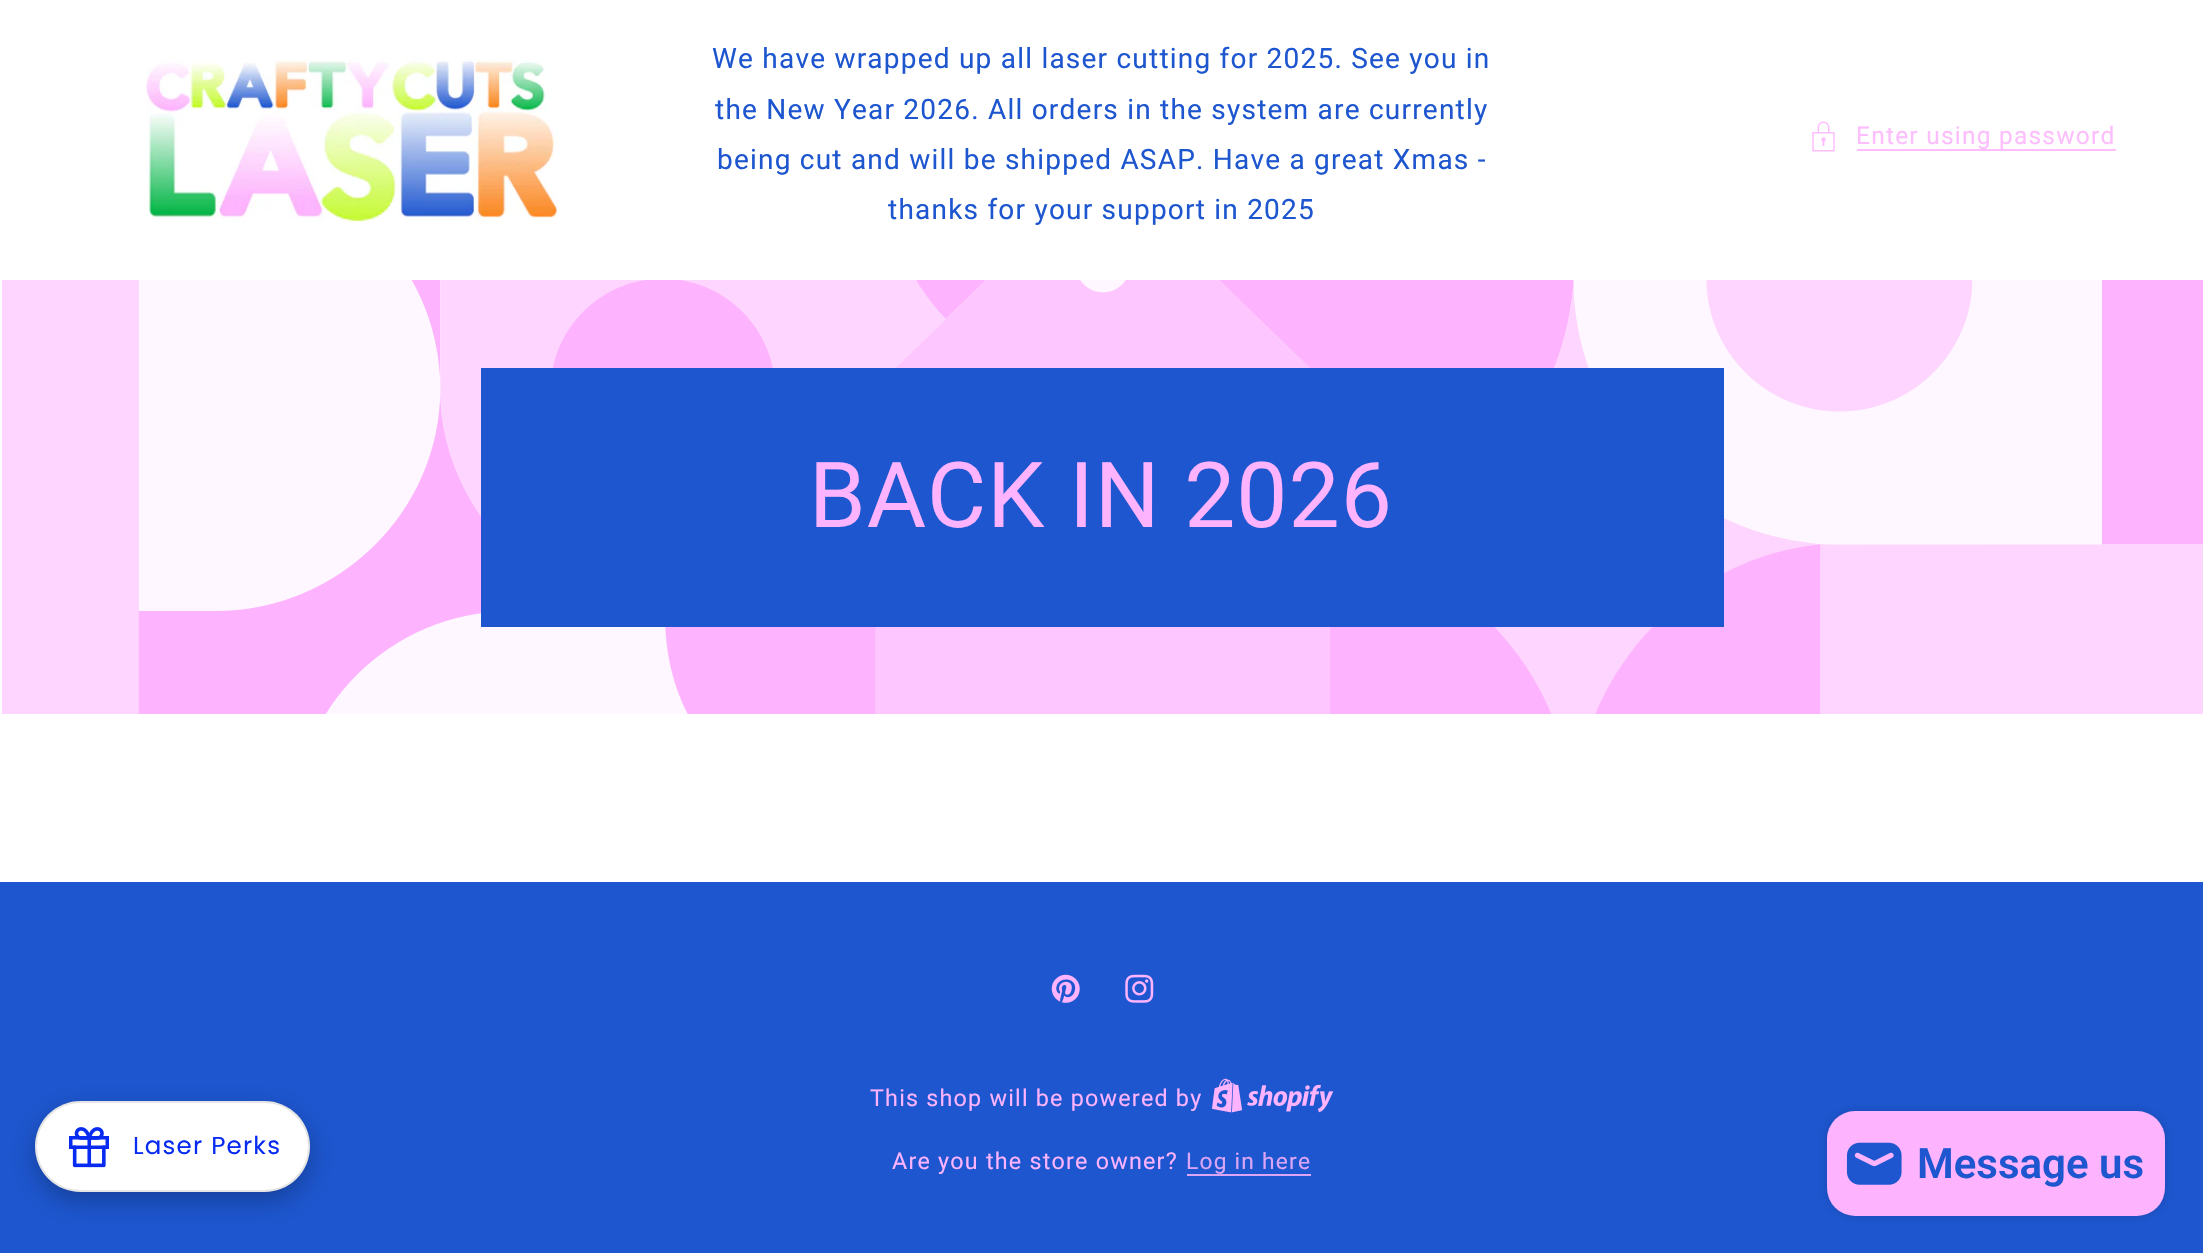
void draw(SkCanvas* canvas) {
    SkPaint paint;
    paint.setAntiAlias(true);
    auto spacedText = [&](const char* s, float x, float y, const SkFont& font, const SkPaint& ink, float letter, float word) {
        std::vector<SkGlyphID> glyphs(font.countText(s, strlen(s), SkTextEncoding::kUTF8));
        std::vector<float> xs(glyphs.size());
        font.textToGlyphs(s, strlen(s), SkTextEncoding::kUTF8, glyphs);
        font.getXPos(glyphs, xs, x);
        float extra = 0;
        for (size_t i = 0; i < glyphs.size(); i++) {
            xs[i] += extra;
            extra += letter + word * (glyphs[i] == font.unicharToGlyph(' '));
        }
        canvas->drawTextBlob(SkTextBlob::MakeFromPosHGlyphs(glyphs, xs, y, font), 0, 0, ink);
    };
    canvas->clear(0xFFFFFFFF);
    canvas->drawImageRect(SkImages::DeferredFromEncodedData(SkData::MakeFromFileName("img1.png")), SkRect::MakeXYWH(146, 59, 413, 166), SkSamplingOptions());
    SkFont font1(fontMgr->matchFamilyStyle("Roboto", SkFontStyle::Normal()), 28);
    font1.setSubpixel(true);
    paint.setColor(0xFF1D56CF);
    spacedText("We have wrapped up all laser cutting for 2025. See you in", 712, 68, font1, paint, 1.22f, 0);
    spacedText("the New Year 2026. All orders in the system are currently", 715, 119, font1, paint, 1.22f, 0);
    spacedText("being cut and will be shipped ASAP. Have a great Xmas -", 717, 169, font1, paint, 1.22f, 0);
    spacedText("thanks for your support in 2025", 888, 219, font1, paint, 1.22f, 0);
    canvas->drawImageRect(SkImages::DeferredFromEncodedData(SkData::MakeFromFileName("img2.png")), SkRect::MakeXYWH(1812, 121, 23, 31), SkSamplingOptions());
    paint.setColor(0xFFFDBEFD);
    canvas->drawRect(SkRect::MakeXYWH(1857, 149, 259, 2), paint);
    SkFont font2(fontMgr->matchFamilyStyle("Roboto", SkFontStyle::Normal()), 24.5f);
    font2.setSubpixel(true);
    spacedText("Enter using password", 1856, 144, font2, paint, 1.22f, 0);
    canvas->drawImageRect(SkImages::DeferredFromEncodedData(SkData::MakeFromFileName("img3.png")), SkRect::MakeXYWH(2, 280, 2201, 434), SkSamplingOptions());
    paint.setColor(0xFF1D56CF);
    canvas->drawRect(SkRect::MakeXYWH(481, 368, 1243, 259), paint);
    SkFont font3(fontMgr->matchFamilyStyle("Roboto", SkFontStyle::Normal()), 91);
    font3.setSubpixel(true);
    paint.setColor(0xFFFDB3FD);
    spacedText("BACK IN 2026", 809, 527, font3, paint, 1, 0);
    paint.setColor(0xFF1D56CF);
    canvas->drawRect(SkRect::MakeXYWH(0, 882, 2203, 371), paint);
    paint.setColor(0x40000000);
    paint.setMaskFilter(SkMaskFilter::MakeBlur(kNormal_SkBlurStyle, 13));
    canvas->drawRoundRect(SkRect::MakeXYWH(35, 1110, 275, 91), 45.5f, 45.5f, paint);
    paint.setMaskFilter(nullptr);
    paint.setColor(0xFFFFFFFF);
    canvas->drawRoundRect(SkRect::MakeXYWH(35, 1101, 275, 91), 45.5f, 45.5f, paint);
    paint.setStyle(SkPaint::kStroke_Style);
    paint.setStrokeWidth(2);
    paint.setColor(0x1A000000);
    canvas->drawRoundRect(SkRect::MakeXYWH(36, 1102, 273, 89), 44.5f, 44.5f, paint);
    canvas->drawImageRect(SkImages::DeferredFromEncodedData(SkData::MakeFromFileName("img4.png")), SkRect::MakeXYWH(69, 1127, 40, 41), SkSamplingOptions());
    SkFont font4(fontMgr->matchFamilyStyle("Poppins", SkFontStyle::Normal()), 24.5f);
    font4.setSubpixel(true);
    paint.setStyle(SkPaint::kFill_Style);
    paint.setColor(0xFF072BF0);
    spacedText("Laser Perks", 133, 1154, font4, paint, 1.22f, 0);
    canvas->drawImageRect(SkImages::DeferredFromEncodedData(SkData::MakeFromFileName("img5.png")), SkRect::MakeXYWH(1051, 974, 29, 29), SkSamplingOptions());
    canvas->drawImageRect(SkImages::DeferredFromEncodedData(SkData::MakeFromFileName("img6.png")), SkRect::MakeXYWH(1125, 974, 29, 29), SkSamplingOptions());
    SkFont font5(fontMgr->matchFamilyStyle("Roboto", SkFontStyle::Normal()), 23.3f);
    font5.setSubpixel(true);
    paint.setColor(0xFFFDB3FD);
    spacedText("This shop will be powered by", 870, 1106, font5, paint, 1.22f, 0);
    canvas->drawImageRect(SkImages::DeferredFromEncodedData(SkData::MakeFromFileName("img7.png")), SkRect::MakeXYWH(1212, 1078, 122, 35), SkSamplingOptions());
    spacedText("Are you the store owner?", 892, 1169, font5, paint, 1.22f, 0);
    SkFont font6(fontMgr->matchFamilyStyle("Roboto", SkFontStyle::Normal()), 22.75f);
    font6.setSubpixel(true);
    paint.setColor(0xFFDBA5F6);
    spacedText("Log in here", 1186, 1169, font6, paint, 1.22f, 0);
    canvas->drawRect(SkRect::MakeXYWH(1187, 1174, 124, 2), paint);
    paint.setColor(0x26000000);
    paint.setMaskFilter(SkMaskFilter::MakeBlur(kNormal_SkBlurStyle, 4.5f));
    canvas->drawRoundRect(SkRect::MakeXYWH(1827, 1111, 338, 105), 28, 28, paint);
    paint.setMaskFilter(nullptr);
    paint.setColor(0xFFFDB3FD);
    canvas->drawRoundRect(SkRect::MakeXYWH(1827, 1111, 338, 105), 28, 28, paint);
    canvas->drawImageRect(SkImages::DeferredFromEncodedData(SkData::MakeFromFileName("img8.png")), SkRect::MakeXYWH(1846, 1142, 56, 43), SkSamplingOptions());
    SkFont font7(fontMgr->matchFamilyStyle("Roboto", SkFontStyle(600, SkFontStyle::kNormal_Width, SkFontStyle::kUpright_Slant)), 42);
    font7.setSubpixel(true);
    paint.setColor(0xFF1D56CF);
    canvas->drawString("Message us", 1917, 1178, font7, paint);
}
